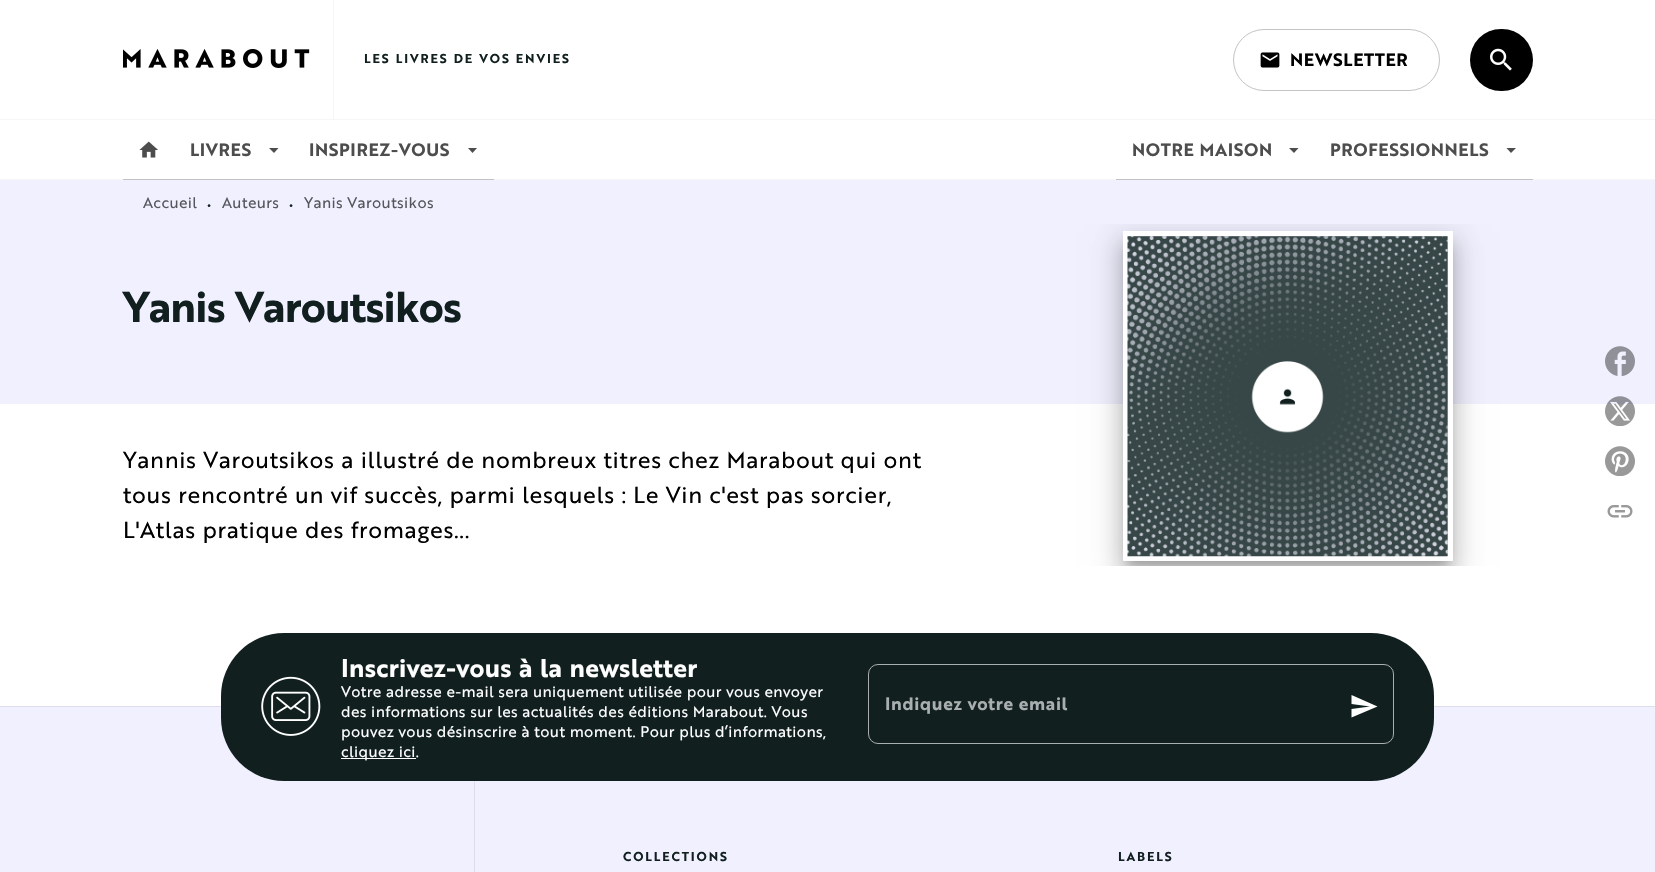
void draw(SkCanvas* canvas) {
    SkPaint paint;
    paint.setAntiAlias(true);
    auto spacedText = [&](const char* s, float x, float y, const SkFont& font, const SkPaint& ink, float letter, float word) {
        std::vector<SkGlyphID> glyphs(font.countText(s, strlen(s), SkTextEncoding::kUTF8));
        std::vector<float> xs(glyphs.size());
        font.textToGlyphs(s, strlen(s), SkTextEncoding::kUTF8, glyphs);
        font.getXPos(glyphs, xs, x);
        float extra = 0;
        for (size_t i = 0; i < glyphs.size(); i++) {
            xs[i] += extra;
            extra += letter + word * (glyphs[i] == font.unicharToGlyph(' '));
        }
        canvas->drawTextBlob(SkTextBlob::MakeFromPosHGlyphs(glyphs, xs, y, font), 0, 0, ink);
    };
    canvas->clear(0xFFFFFFFF);
    paint.setColor(0xFFF6F6F6);
    canvas->drawRect(SkRect::MakeXYWH(0, 119, 1655, 1), paint);
    canvas->drawRect(SkRect::MakeXYWH(333, 0, 1, 119), paint);
    canvas->drawImageRect(SkImages::DeferredFromEncodedData(SkData::MakeFromFileName("img1.png")), SkRect::MakeXYWH(123, 49, 187, 19), SkSamplingOptions());
    SkFont font1(fontMgr->matchFamilyStyle("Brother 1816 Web", SkFontStyle::Bold()), 12.5f);
    font1.setSubpixel(true);
    paint.setColor(0xFF111F1F);
    spacedText("LES LIVRES DE VOS ENVIES", 364, 63, font1, paint, 1.9f, 0);
    paint.setStyle(SkPaint::kStroke_Style);
    paint.setStrokeWidth(1);
    paint.setColor(0xFFC4C4C4);
    canvas->drawRoundRect(SkRect::MakeXYWH(1233.5f, 29.5f, 206, 61), 30.5f, 30.5f, paint);
    canvas->drawImageRect(SkImages::DeferredFromEncodedData(SkData::MakeFromFileName("img2.png")), SkRect::MakeXYWH(1260, 52, 20, 16), SkSamplingOptions());
    SkFont font2(fontMgr->matchFamilyStyle("Brother 1816 Web", SkFontStyle::Bold()), 17.5f);
    font2.setSubpixel(true);
    paint.setStyle(SkPaint::kFill_Style);
    paint.setColor(0xFF000000);
    spacedText("NEWSLETTER", 1290, 66, font2, paint, 0.6f, 0);
    canvas->drawRoundRect(SkRect::MakeXYWH(1470, 29, 63, 62), 31, 31, paint);
    canvas->drawImageRect(SkImages::DeferredFromEncodedData(SkData::MakeFromFileName("img3.png")), SkRect::MakeXYWH(1490, 48, 22, 23), SkSamplingOptions());
    canvas->drawImageRect(SkImages::DeferredFromEncodedData(SkData::MakeFromFileName("img4.png")), SkRect::MakeXYWH(139, 141, 19, 17), SkSamplingOptions());
    paint.setColor(0xFFF6F6F6);
    canvas->drawRect(SkRect::MakeXYWH(0, 179, 1655, 1), paint);
    paint.setColor(0xFFC2C2C2);
    canvas->drawRect(SkRect::MakeXYWH(123, 179, 371, 1), paint);
    paint.setColor(0xFF4D4D4D);
    spacedText("LIVRES", 190, 156, font2, paint, 0.6f, 0);
    canvas->drawPath(SkPathBuilder().moveTo(269, 148).lineTo(278.5f, 148).lineTo(274, 153).close().detach(), paint);
    spacedText("INSPIREZ-VOUS", 309, 156, font2, paint, 0.6f, 0);
    canvas->drawPath(SkPathBuilder().moveTo(468, 148).lineTo(477, 148).lineTo(472.5f, 153).close().detach(), paint);
    spacedText("NOTRE MAISON", 1132, 156, font2, paint, 0.6f, 0);
    canvas->drawPath(SkPathBuilder().moveTo(1289, 148).lineTo(1298.5f, 148).lineTo(1294, 153).close().detach(), paint);
    paint.setColor(0xFFC2C2C2);
    canvas->drawRect(SkRect::MakeXYWH(1116, 179, 417, 1), paint);
    paint.setColor(0xFF4D4D4D);
    spacedText("PROFESSIONNELS", 1330, 156, font2, paint, 0.6f, 0);
    canvas->drawPath(SkPathBuilder().moveTo(1506.5f, 148).lineTo(1516, 148).lineTo(1511, 153).close().detach(), paint);
    paint.setColor(0xFFF0F0FF);
    canvas->drawRect(SkRect::MakeXYWH(0, 180, 1655, 224), paint);
    SkFont font3(fontMgr->matchFamilyStyle("Brother 1816 Web", SkFontStyle::Normal()), 15);
    font3.setSubpixel(true);
    paint.setColor(0xFF56565C);
    spacedText("Accueil", 143, 208, font3, paint, 0.38f, 0);
    paint.setColor(0xFF111F1F);
    spacedText("•", 207, 211, font3, paint, 0.65f, 0);
    paint.setColor(0xFF56565C);
    spacedText("Auteurs", 222, 208, font3, paint, 0.38f, 0);
    paint.setColor(0xFF111F1F);
    spacedText("•", 289, 211, font3, paint, 0.65f, 0);
    paint.setColor(0xFF56565C);
    spacedText("Yanis Varoutsikos", 304, 208, font3, paint, 0.38f, 0);
    SkFont font4(fontMgr->matchFamilyStyle("Brother 1816 Web", SkFontStyle::Bold()), 42);
    font4.setSubpixel(true);
    paint.setColor(0xFF111F1F);
    spacedText("Yanis Varoutsikos", 123, 322, font4, paint, -0.8f, 0);
    SkFont font5(fontMgr->matchFamilyStyle("Brother 1816 Web", SkFontStyle::Normal()), 22.6f);
    font5.setSubpixel(true);
    paint.setColor(0xFF000000);
    spacedText("Yannis Varoutsikos a illustré de nombreux titres chez Marabout qui ont", 123, 468, font5, paint, 0.65f, 0);
    spacedText("tous rencontré un vif succès, parmi lesquels : Le Vin c'est pas sorcier,", 123, 503, font5, paint, 0.65f, 0);
    spacedText("L'Atlas pratique des fromages...", 123, 538, font5, paint, 0.65f, 0);
    canvas->save();
    canvas->clipRect(SkRect::MakeXYWH(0, 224, 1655, 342));
    paint.setColor(0x1F000000);
    paint.setMaskFilter(SkMaskFilter::MakeBlur(kNormal_SkBlurStyle, 14));
    canvas->drawRect(SkRect::MakeXYWH(1118, 233, 340, 340), paint);
    paint.setMaskFilter(nullptr);
    paint.setColor(0x24000000);
    paint.setMaskFilter(SkMaskFilter::MakeBlur(kNormal_SkBlurStyle, 10.5f));
    canvas->drawRect(SkRect::MakeXYWH(1120, 244, 335, 335), paint);
    paint.setMaskFilter(nullptr);
    paint.setColor(0x33000000);
    paint.setMaskFilter(SkMaskFilter::MakeBlur(kNormal_SkBlurStyle, 5));
    canvas->drawRect(SkRect::MakeXYWH(1128, 245, 320, 320), paint);
    paint.setMaskFilter(nullptr);
    canvas->restore();
    paint.setStyle(SkPaint::kStroke_Style);
    paint.setStrokeWidth(5);
    paint.setColor(0xFFFFFFFF);
    canvas->drawRect(SkRect::MakeXYWH(1125.5f, 233.5f, 325, 325), paint);
    canvas->drawImageRect(SkImages::DeferredFromEncodedData(SkData::MakeFromFileName("img5.png")), SkRect::MakeXYWH(1127, 236, 321, 321), SkSamplingOptions());
    canvas->drawImageRect(SkImages::DeferredFromEncodedData(SkData::MakeFromFileName("img6.png")), SkRect::MakeXYWH(1605, 346, 30, 30), SkSamplingOptions());
    canvas->drawImageRect(SkImages::DeferredFromEncodedData(SkData::MakeFromFileName("img7.png")), SkRect::MakeXYWH(1605, 396, 30, 30), SkSamplingOptions());
    canvas->drawImageRect(SkImages::DeferredFromEncodedData(SkData::MakeFromFileName("img8.png")), SkRect::MakeXYWH(1605, 446, 30, 30), SkSamplingOptions());
    canvas->drawImageRect(SkImages::DeferredFromEncodedData(SkData::MakeFromFileName("img9.png")), SkRect::MakeXYWH(1607, 505, 26, 13), SkSamplingOptions());
    paint.setStyle(SkPaint::kFill_Style);
    paint.setColor(0xFFF0F0FF);
    canvas->drawRect(SkRect::MakeXYWH(0, 707, 1655, 165), paint);
    paint.setColor(0xFFDDDDEB);
    canvas->drawRect(SkRect::MakeXYWH(0, 706, 1655, 1), paint);
    paint.setColor(0xFF111F1F);
    canvas->drawRoundRect(SkRect::MakeXYWH(221, 633, 1213, 148), 63, 63, paint);
    canvas->drawImageRect(SkImages::DeferredFromEncodedData(SkData::MakeFromFileName("img10.png")), SkRect::MakeXYWH(261, 676, 60, 60), SkSamplingOptions());
    SkFont font6(fontMgr->matchFamilyStyle("Brother 1816 Web", SkFontStyle::Bold()), 25);
    font6.setSubpixel(true);
    paint.setColor(0xFFFFFFFF);
    spacedText("Inscrivez-vous à la newsletter", 341, 677, font6, paint, 0.3f, 0.5f);
    spacedText("Votre adresse e-mail sera uniquement utilisée pour vous envoyer", 341, 697, font3, paint, 0.38f, 0);
    spacedText("des informations sur les actualités des éditions Marabout. Vous", 341, 717, font3, paint, 0.38f, 0);
    spacedText("pouvez vous désinscrire à tout moment. Pour plus d’informations,", 341, 737, font3, paint, 0.38f, 0);
    canvas->drawRect(SkRect::MakeXYWH(341, 758, 75, 1), paint);
    spacedText("cliquez ici.", 341, 757, font3, paint, 0.38f, 0);
    paint.setStyle(SkPaint::kStroke_Style);
    paint.setStrokeWidth(1);
    paint.setColor(0xFFA9AEAE);
    canvas->drawRoundRect(SkRect::MakeXYWH(868.5f, 664.5f, 525, 79), 9.5f, 9.5f, paint);
    paint.setStyle(SkPaint::kFill_Style);
    spacedText("Indiquez votre email", 885, 710, font2, paint, 0.65f, 0);
    paint.setColor(0xFFFFFFFF);
    canvas->drawPath(SkPathBuilder().moveTo(1351.5f, 717.5f).lineTo(1351.5f, 709).lineTo(1370, 706.5f).lineTo(1351.5f, 704).lineTo(1351.5f, 695).lineTo(1377.5f, 706.5f).close().detach(), paint);
    paint.setColor(0xFFDDDDEB);
    canvas->drawRect(SkRect::MakeXYWH(474, 781, 1, 91), paint);
    paint.setColor(0xFF111F1F);
    spacedText("COLLECTIONS", 623, 861, font1, paint, 1.9f, 0);
    spacedText("LABELS", 1118, 861, font1, paint, 1.9f, 0);
}
